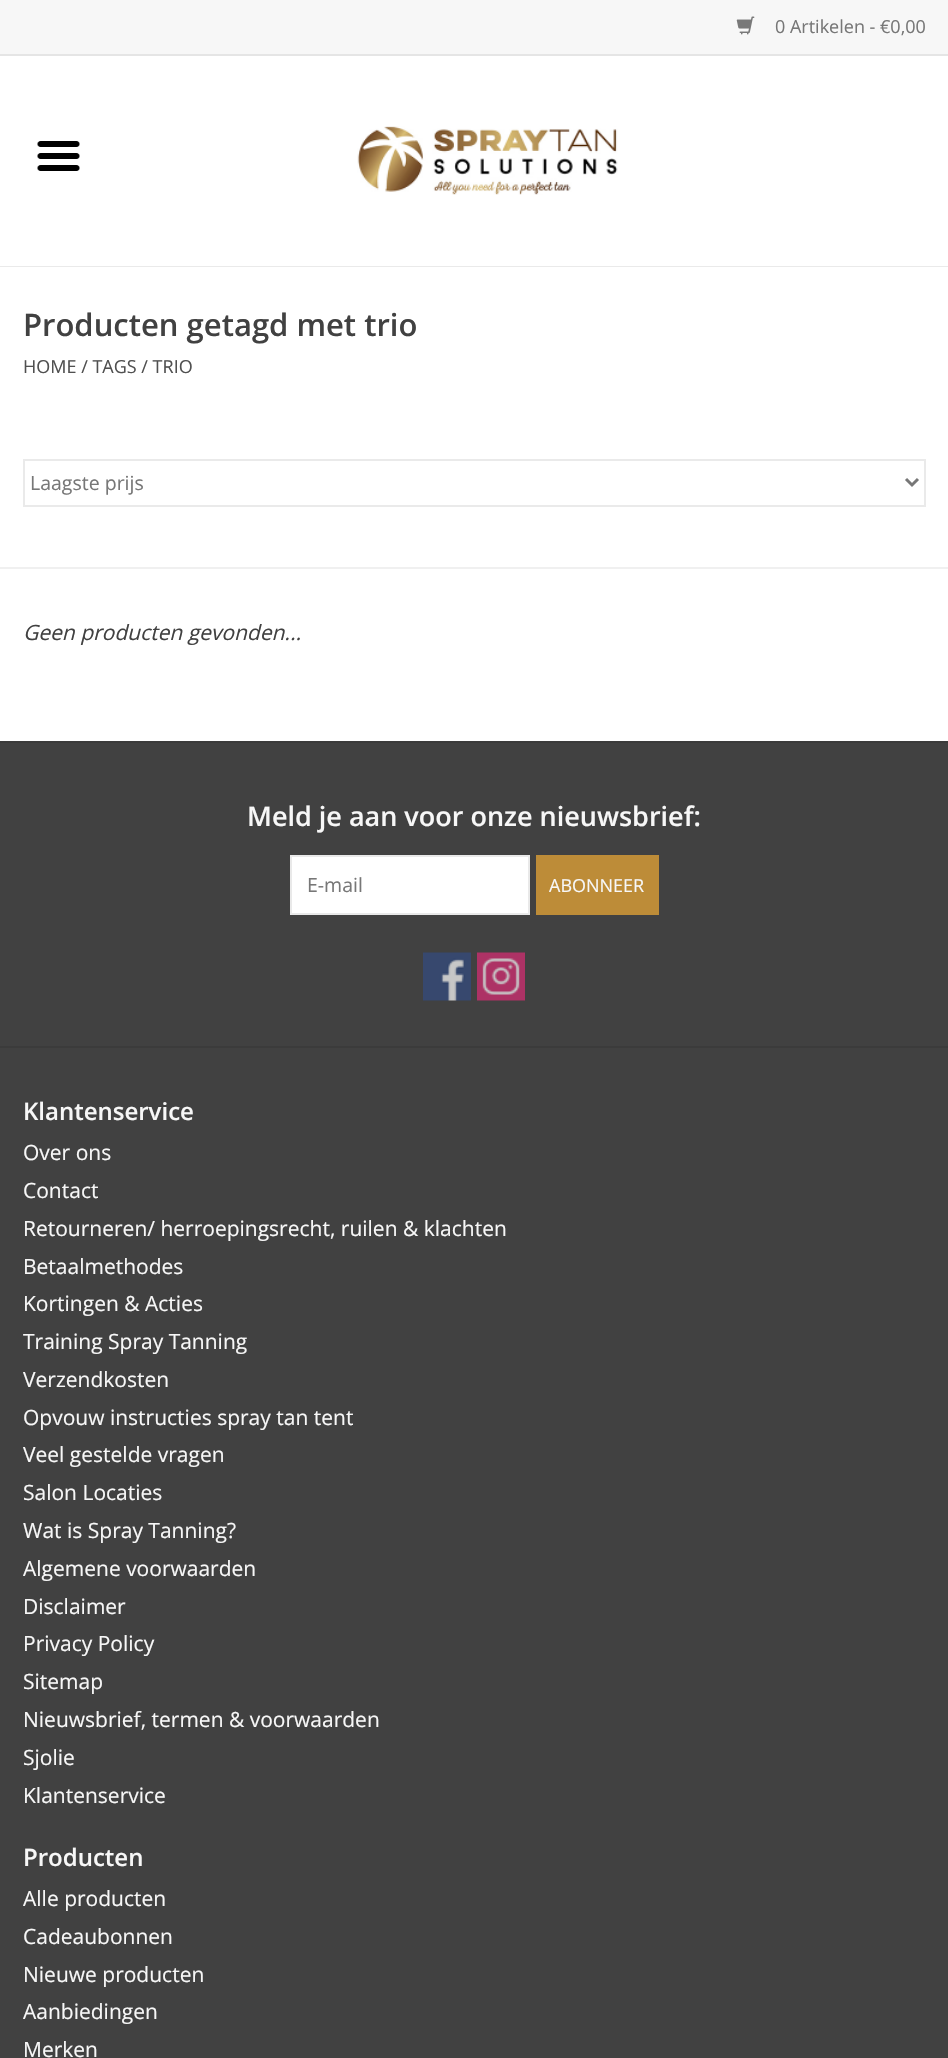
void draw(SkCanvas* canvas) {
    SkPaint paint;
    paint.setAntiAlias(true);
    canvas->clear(0xFFFFFFFF);
    paint.setColor(0xFFF7F7F7);
    canvas->drawRect(SkRect::MakeXYWH(0, 0, 948, 54), paint);
    paint.setColor(0xFFE5E5E5);
    canvas->drawRect(SkRect::MakeXYWH(0, 54, 948, 2), paint);
    canvas->drawImageRect(SkImages::DeferredFromEncodedData(SkData::MakeFromFileName("img1.png")), SkRect::MakeXYWH(736, 16, 19, 19), SkSamplingOptions());
    SkFont font1(fontMgr->matchFamilyStyle("Open Sans", SkFontStyle::Normal()), 18);
    font1.setSubpixel(true);
    paint.setColor(0xFF777777);
    canvas->drawString("0 Artikelen - €0,00", 775, 33, font1, paint);
    paint.setColor(0xFFEAEAEA);
    canvas->drawRect(SkRect::MakeXYWH(0, 266, 948, 1), paint);
    canvas->drawImageRect(SkImages::DeferredFromEncodedData(SkData::MakeFromFileName("img2.png")), SkRect::MakeXYWH(357, 126, 261, 69), SkSamplingOptions());
    canvas->drawImageRect(SkImages::DeferredFromEncodedData(SkData::MakeFromFileName("img3.png")), SkRect::MakeXYWH(37, 141, 43, 30), SkSamplingOptions());
    SkFont font2(fontMgr->matchFamilyStyle("Open Sans", SkFontStyle(600, SkFontStyle::kNormal_Width, SkFontStyle::kUpright_Slant)), 31);
    font2.setSubpixel(true);
    paint.setColor(0xFF414141);
    canvas->drawString("Producten getagd met trio", 23, 336, font2, paint);
    paint.setColor(0xFF505050);
    canvas->drawString("HOME / TAGS / TRIO", 23, 373, font1, paint);
    paint.setColor(0xFFF0F0F0);
    canvas->drawRect(SkRect::MakeXYWH(0, 567, 948, 2), paint);
    paint.setStyle(SkPaint::kStroke_Style);
    paint.setStrokeWidth(2);
    paint.setColor(0xFFEAEAEA);
    canvas->drawRect(SkRect::MakeXYWH(24, 460, 901, 46), paint);
    paint.setStrokeWidth(3);
    paint.setColor(0xFF777777);
    canvas->drawPath(SkPathBuilder().moveTo(906, 479).lineTo(912, 485).lineTo(918, 479).detach(), paint);
    SkFont font3(fontMgr->matchFamilyStyle("Open Sans", SkFontStyle::Normal()), 19.5f);
    font3.setSubpixel(true);
    paint.setStyle(SkPaint::kFill_Style);
    canvas->drawString("Laagste prijs", 30, 490, font3, paint);
    SkFont font4(fontMgr->matchFamilyStyle("Open Sans", SkFontStyle::Italic()), 21);
    font4.setSubpixel(true);
    paint.setColor(0xFF414141);
    canvas->drawString("Geen producten gevonden...", 23, 640, font4, paint);
    canvas->drawRect(SkRect::MakeXYWH(0, 743, 948, 1315), paint);
    paint.setColor(0xFF3B3B3B);
    canvas->drawRect(SkRect::MakeXYWH(0, 741, 948, 2), paint);
    SkFont font5(fontMgr->matchFamilyStyle("Open Sans", SkFontStyle(600, SkFontStyle::kNormal_Width, SkFontStyle::kUpright_Slant)), 27);
    font5.setSubpixel(true);
    paint.setColor(0xFFF7F7F7);
    canvas->drawString("Meld je aan voor onze nieuwsbrief:", 247, 826, font5, paint);
    paint.setColor(0xFFFFFFFF);
    canvas->drawRect(SkRect::MakeXYWH(291, 856, 238, 58), paint);
    paint.setStyle(SkPaint::kStroke_Style);
    paint.setStrokeWidth(2);
    paint.setColor(0xFFE9E9E9);
    canvas->drawRect(SkRect::MakeXYWH(291, 856, 238, 58), paint);
    paint.setStyle(SkPaint::kFill_Style);
    paint.setColor(0xFF777777);
    canvas->drawString("E-mail", 307, 892, font3, paint);
    paint.setColor(0xFFBD8C38);
    canvas->drawRect(SkRect::MakeXYWH(536, 855, 123, 60), paint);
    paint.setColor(0xFFF7F7F7);
    canvas->drawString("ABONNEER", 549, 892, font1, paint);
    canvas->drawImageRect(SkImages::DeferredFromEncodedData(SkData::MakeFromFileName("img4.png")), SkRect::MakeXYWH(423, 952, 48, 49), SkSamplingOptions());
    canvas->drawImageRect(SkImages::DeferredFromEncodedData(SkData::MakeFromFileName("img5.png")), SkRect::MakeXYWH(477, 952, 48, 49), SkSamplingOptions());
    paint.setColor(0xFF3B3B3B);
    canvas->drawRect(SkRect::MakeXYWH(0, 1046, 948, 2), paint);
    SkFont font6(fontMgr->matchFamilyStyle("Open Sans", SkFontStyle(600, SkFontStyle::kNormal_Width, SkFontStyle::kUpright_Slant)), 24);
    font6.setSubpixel(true);
    paint.setColor(0xFFF7F7F7);
    canvas->drawString("Klantenservice", 23, 1120, font6, paint);
    SkFont font7(fontMgr->matchFamilyStyle("Open Sans", SkFontStyle::Normal()), 21);
    font7.setSubpixel(true);
    canvas->drawString("Over ons", 23, 1160, font7, paint);
    canvas->drawString("Contact", 23, 1198, font7, paint);
    canvas->drawString("Retourneren/ herroepingsrecht, ruilen & klachten", 23, 1236, font7, paint);
    canvas->drawString("Betaalmethodes", 23, 1274, font7, paint);
    canvas->drawString("Kortingen & Acties", 23, 1311, font7, paint);
    canvas->drawString("Training Spray Tanning", 23, 1349, font7, paint);
    canvas->drawString("Verzendkosten", 23, 1387, font7, paint);
    canvas->drawString("Opvouw instructies spray tan tent", 23, 1425, font7, paint);
    canvas->drawString("Veel gestelde vragen", 23, 1462, font7, paint);
    canvas->drawString("Salon Locaties", 23, 1500, font7, paint);
    canvas->drawString("Wat is Spray Tanning?", 23, 1538, font7, paint);
    canvas->drawString("Algemene voorwaarden", 23, 1576, font7, paint);
    canvas->drawString("Disclaimer", 23, 1614, font7, paint);
    canvas->drawString("Privacy Policy", 23, 1651, font7, paint);
    canvas->drawString("Sitemap", 23, 1689, font7, paint);
    canvas->drawString("Nieuwsbrief, termen & voorwaarden", 23, 1727, font7, paint);
    canvas->drawString("Sjolie", 23, 1765, font7, paint);
    canvas->drawString("Klantenservice", 23, 1803, font7, paint);
    canvas->drawString("Producten", 23, 1866, font6, paint);
    canvas->drawString("Alle producten", 23, 1906, font7, paint);
    canvas->drawString("Cadeaubonnen", 23, 1944, font7, paint);
    canvas->drawString("Nieuwe producten", 23, 1982, font7, paint);
    canvas->drawString("Aanbiedingen", 23, 2019, font7, paint);
    canvas->drawString("Merken", 23, 2057, font7, paint);
}
